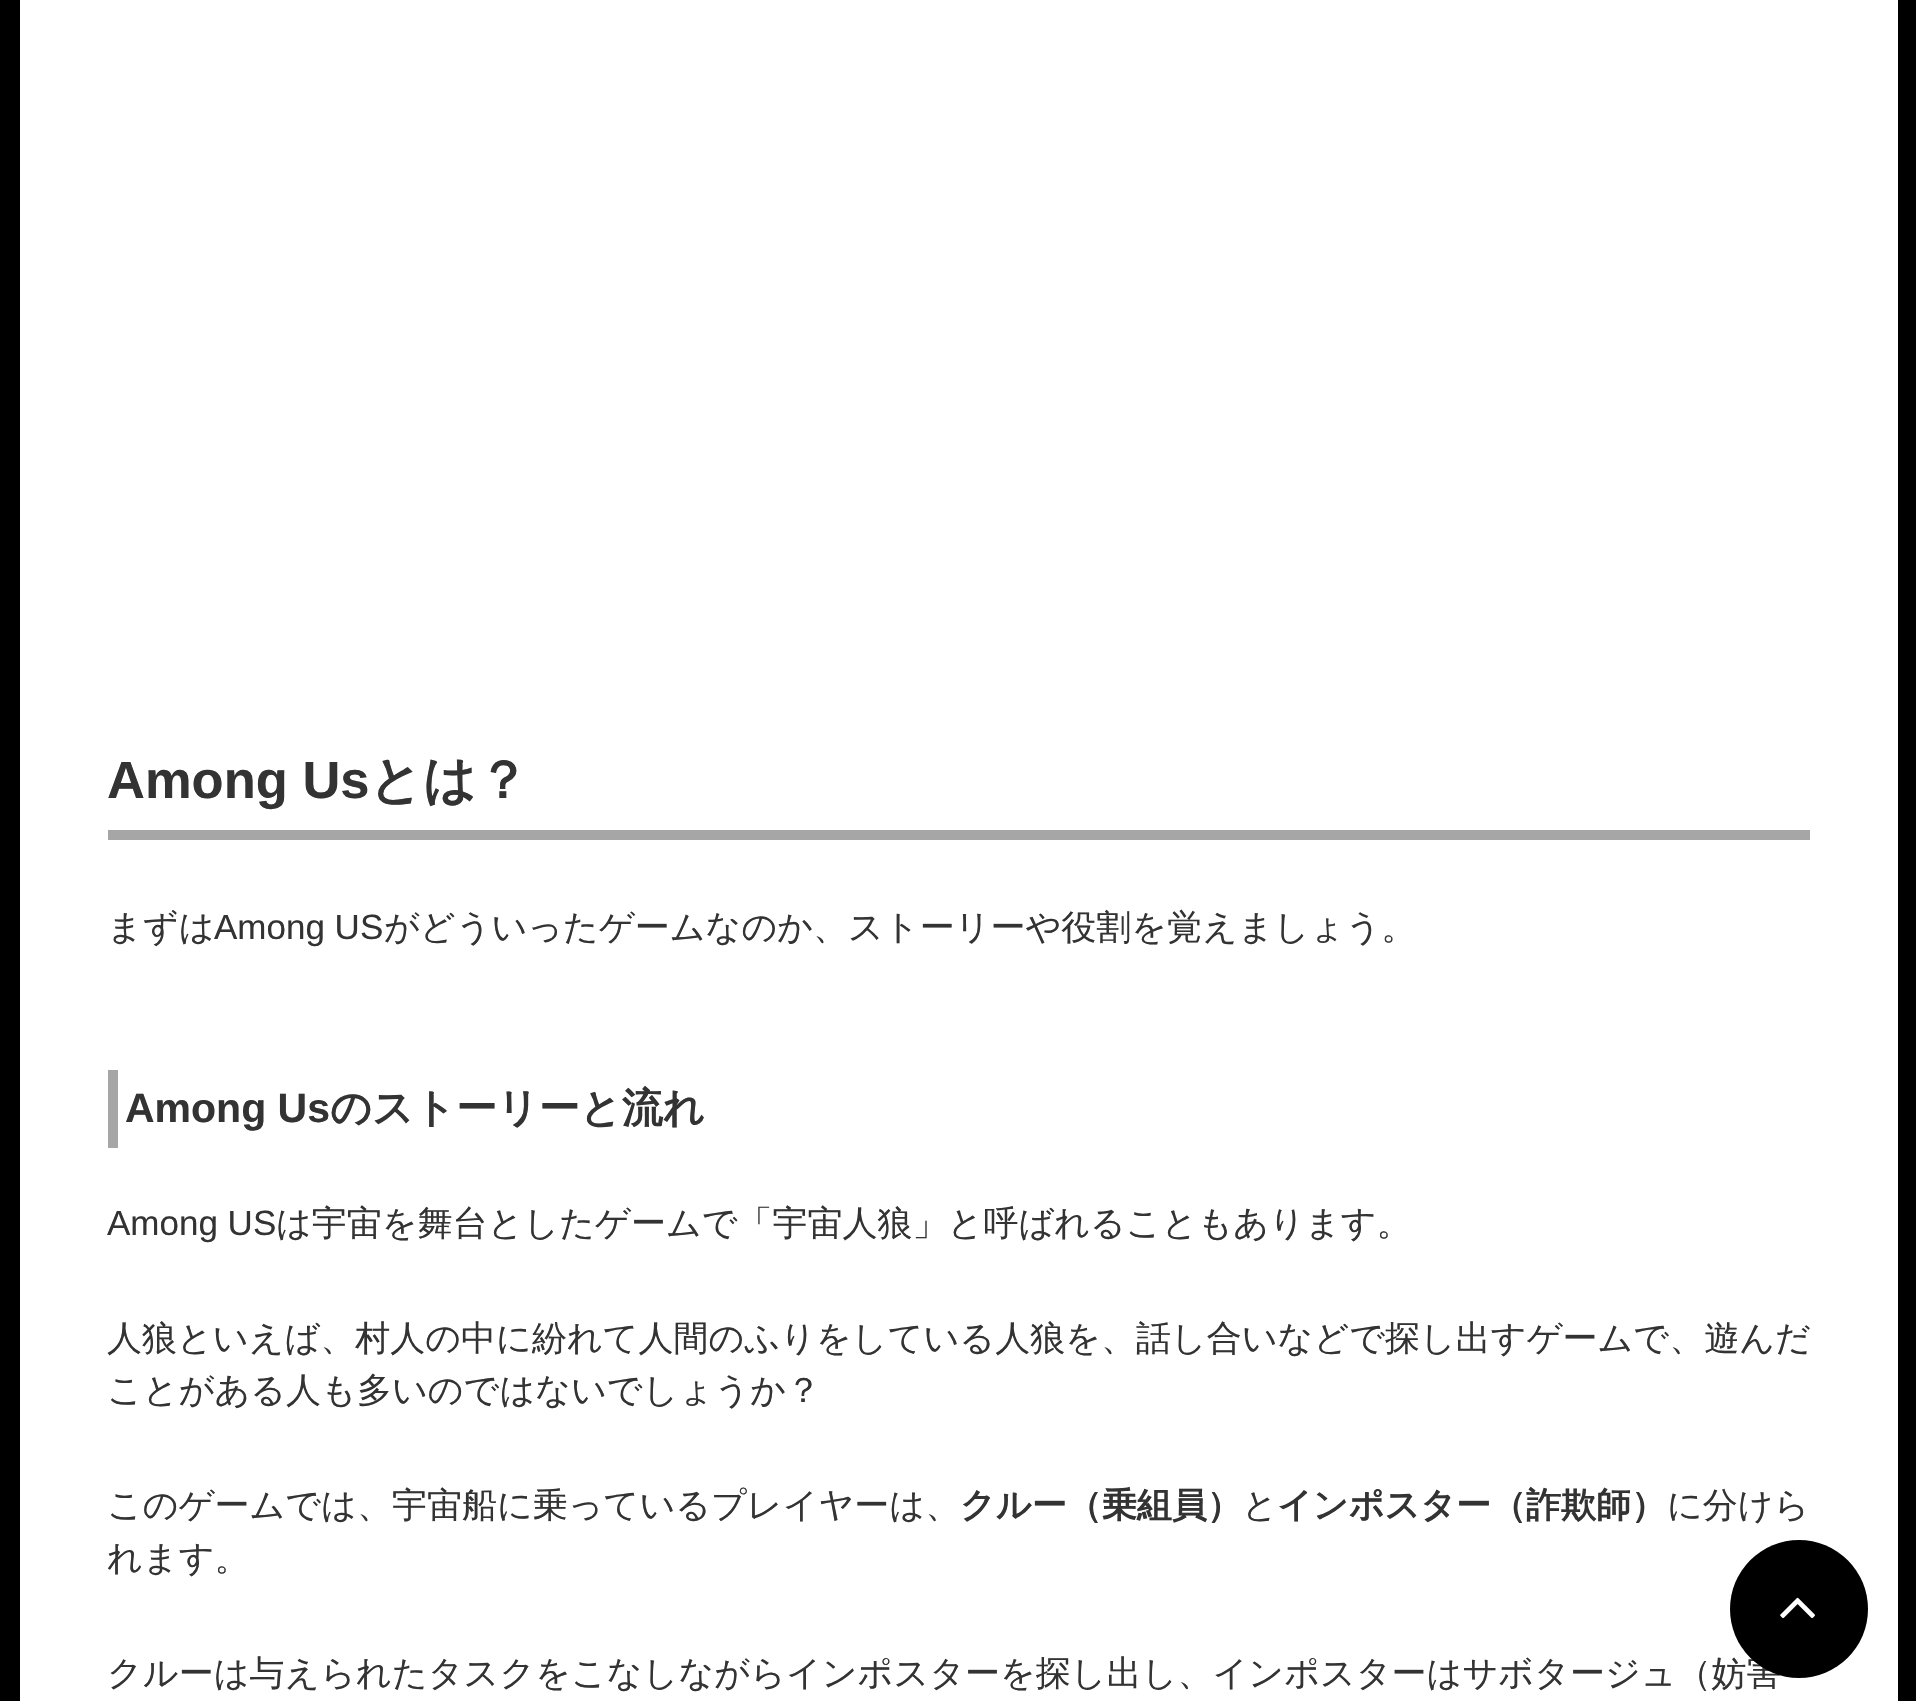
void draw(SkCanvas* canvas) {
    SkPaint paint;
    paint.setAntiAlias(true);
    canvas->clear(0xFF000000);
    paint.setColor(0xFFFFFFFF);
    canvas->drawRect(SkRect::MakeXYWH(20, 0, 1878, 1701), paint);
    paint.setColor(0xFFA6A6A6);
    canvas->drawRect(SkRect::MakeXYWH(108, 830, 1702, 10), paint);
    SkFont font1(fontMgr->matchFamilyStyle("Liberation Sans", SkFontStyle::Bold()), 52.5f);
    font1.setSubpixel(true);
    paint.setColor(0xFF333333);
    canvas->drawString("Among Us", 107, 798, font1, paint);
    SkFont font2(fontMgr->matchFamilyStyle("WenQuanYi Zen Hei", SkFontStyle::Bold()), 52.5f);
    font2.setSubpixel(true);
    canvas->drawString("とは？", 369, 798, font2, paint);
    SkFont font3(fontMgr->matchFamilyStyle("WenQuanYi Zen Hei", SkFontStyle(500, SkFontStyle::kNormal_Width, SkFontStyle::kUpright_Slant)), 35);
    font3.setSubpixel(true);
    canvas->drawString("まずは", 107, 939, font3, paint);
    SkFont font4(fontMgr->matchFamilyStyle("Liberation Sans", SkFontStyle::Normal()), 35);
    font4.setSubpixel(true);
    canvas->drawString("Among US", 214, 939, font4, paint);
    canvas->drawString("がどういったゲームなのか、ストーリーや役割を覚えましょう。", 384, 939, font3, paint);
    paint.setColor(0xFFA6A6A6);
    canvas->drawRect(SkRect::MakeXYWH(108, 1070, 10, 78), paint);
    SkFont font5(fontMgr->matchFamilyStyle("Liberation Sans", SkFontStyle::Bold()), 41);
    font5.setSubpixel(true);
    paint.setColor(0xFF333333);
    canvas->drawString("Among Us", 125, 1122, font5, paint);
    SkFont font6(fontMgr->matchFamilyStyle("WenQuanYi Zen Hei", SkFontStyle::Bold()), 41);
    font6.setSubpixel(true);
    canvas->drawString("のストーリーと流れ", 330, 1122, font6, paint);
    canvas->drawString("Among US", 107, 1235, font4, paint);
    canvas->drawString("は宇宙を舞台としたゲームで「宇宙人狼」と呼ばれることもあります。", 276, 1235, font3, paint);
    canvas->drawString("人狼といえば、村人の中に紛れて人間のふりをしている人狼を、話し合いなどで探し出すゲームで、遊んだ", 107, 1350, font3, paint);
    canvas->drawString("ことがある人も多いのではないでしょうか？", 107, 1402, font3, paint);
    canvas->drawString("このゲームでは、宇宙船に乗っているプレイヤーは、", 107, 1517, font3, paint);
    SkFont font7(fontMgr->matchFamilyStyle("WenQuanYi Zen Hei", SkFontStyle::Bold()), 35);
    font7.setSubpixel(true);
    canvas->drawString("クルー（乗組員）", 960, 1517, font7, paint);
    canvas->drawString("と", 1242, 1517, font3, paint);
    canvas->drawString("インポスター（詐欺師）", 1277, 1517, font7, paint);
    canvas->drawString("に分けら", 1667, 1517, font3, paint);
    canvas->drawString("れます。", 107, 1570, font3, paint);
    canvas->drawString("クルーは与えられたタスクをこなしながらインポスターを探し出し、インポスターはサボタージュ（妨害", 107, 1685, font3, paint);
    paint.setColor(0xFF000000);
    canvas->drawCircle(1799, 1609, 69, paint);
    canvas->drawImageRect(SkImages::DeferredFromEncodedData(SkData::MakeFromFileName("img1.png")), SkRect::MakeXYWH(1780, 1597, 35, 22), SkSamplingOptions());
}
